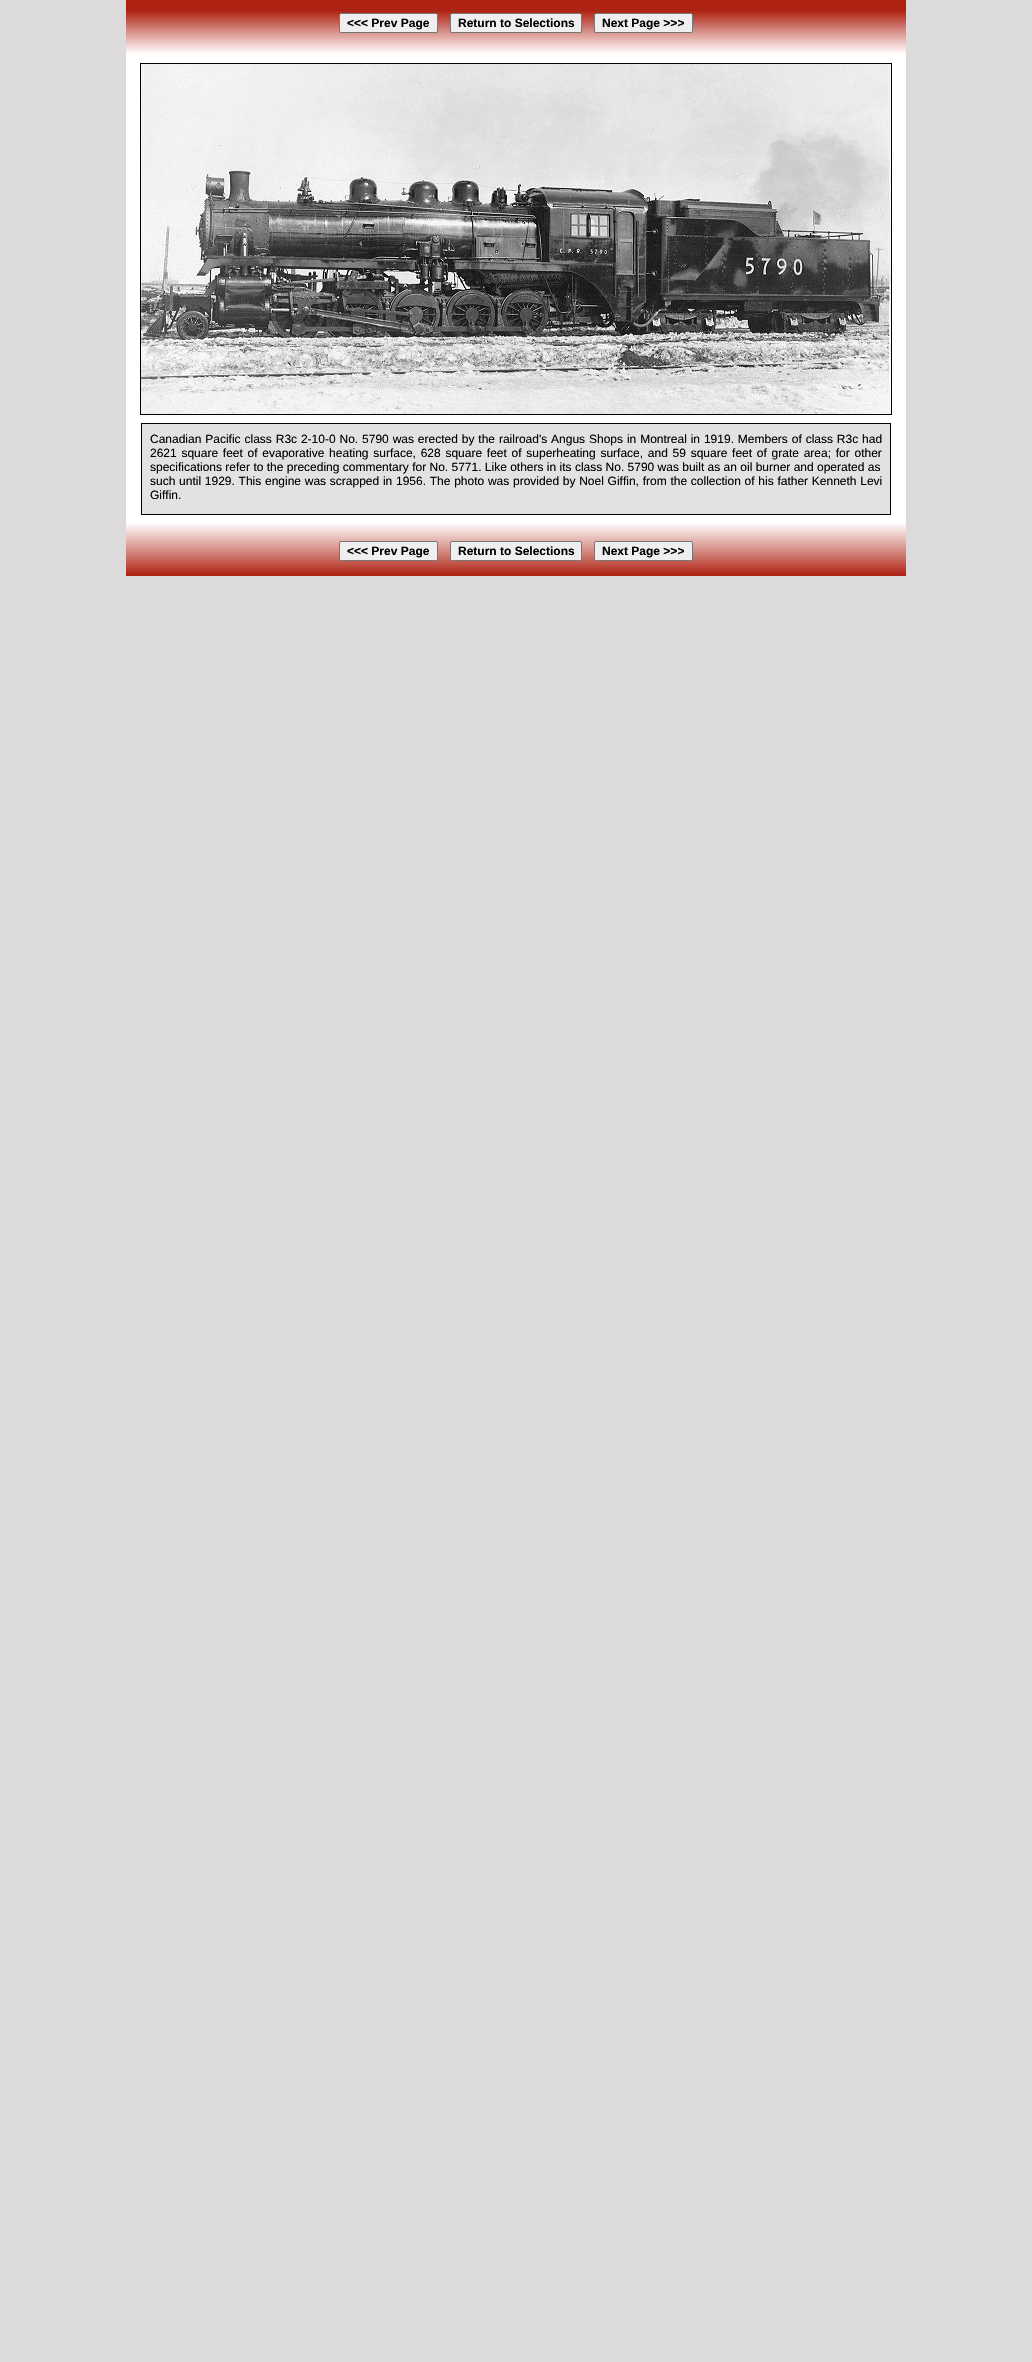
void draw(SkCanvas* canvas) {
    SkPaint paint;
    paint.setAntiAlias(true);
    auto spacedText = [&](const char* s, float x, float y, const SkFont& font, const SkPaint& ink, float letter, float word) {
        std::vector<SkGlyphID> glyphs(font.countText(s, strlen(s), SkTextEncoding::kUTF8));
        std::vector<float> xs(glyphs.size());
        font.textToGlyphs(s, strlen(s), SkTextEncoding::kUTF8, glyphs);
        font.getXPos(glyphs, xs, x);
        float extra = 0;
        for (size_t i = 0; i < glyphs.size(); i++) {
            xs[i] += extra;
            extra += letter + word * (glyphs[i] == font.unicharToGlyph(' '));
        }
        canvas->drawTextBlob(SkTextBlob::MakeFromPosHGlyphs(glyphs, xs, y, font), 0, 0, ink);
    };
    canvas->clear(0xFFDCDADA);
    paint.setColor(0xFFFFFFFF);
    canvas->drawRect(SkRect::MakeXYWH(126, 54, 780, 469), paint);
    canvas->drawImageRect(SkImages::DeferredFromEncodedData(SkData::MakeFromFileName("img1.png")), SkRect::MakeXYWH(126, 0, 780, 54), SkSamplingOptions());
    paint.setColor(0xFFEFEFEF);
    canvas->drawRoundRect(SkRect::MakeXYWH(339.5f, 13.5f, 98, 19), 1.5f, 1.5f, paint);
    paint.setStyle(SkPaint::kStroke_Style);
    paint.setStrokeWidth(1);
    paint.setColor(0xFF767676);
    canvas->drawRoundRect(SkRect::MakeXYWH(339.5f, 13.5f, 98, 19), 1.5f, 1.5f, paint);
    SkFont font1(fontMgr->matchFamilyStyle("Liberation Sans", SkFontStyle::Bold()), 12);
    font1.setSubpixel(true);
    paint.setStyle(SkPaint::kFill_Style);
    paint.setColor(0xFF000000);
    canvas->drawString("<<< Prev Page", 347, 27, font1, paint);
    paint.setColor(0xFFEFEFEF);
    canvas->drawRoundRect(SkRect::MakeXYWH(450.5f, 13.5f, 131, 19), 1.5f, 1.5f, paint);
    paint.setStyle(SkPaint::kStroke_Style);
    paint.setColor(0xFF767676);
    canvas->drawRoundRect(SkRect::MakeXYWH(450.5f, 13.5f, 131, 19), 1.5f, 1.5f, paint);
    paint.setStyle(SkPaint::kFill_Style);
    paint.setColor(0xFF000000);
    canvas->drawString("Return to Selections", 458, 27, font1, paint);
    paint.setColor(0xFFEFEFEF);
    canvas->drawRoundRect(SkRect::MakeXYWH(594.5f, 13.5f, 98, 19), 1.5f, 1.5f, paint);
    paint.setStyle(SkPaint::kStroke_Style);
    paint.setColor(0xFF767676);
    canvas->drawRoundRect(SkRect::MakeXYWH(594.5f, 13.5f, 98, 19), 1.5f, 1.5f, paint);
    paint.setStyle(SkPaint::kFill_Style);
    paint.setColor(0xFF000000);
    canvas->drawString("Next Page >>>", 602, 27, font1, paint);
    paint.setStyle(SkPaint::kStroke_Style);
    canvas->drawRect(SkRect::MakeXYWH(140.5f, 63.5f, 751, 351), paint);
    canvas->drawImageRect(SkImages::DeferredFromEncodedData(SkData::MakeFromFileName("img2.png")), SkRect::MakeXYWH(141, 64, 750, 350), SkSamplingOptions());
    paint.setStyle(SkPaint::kFill_Style);
    paint.setColor(0xFFE2E2E2);
    canvas->drawRect(SkRect::MakeXYWH(141.5f, 423.5f, 749, 91), paint);
    paint.setStyle(SkPaint::kStroke_Style);
    paint.setColor(0xFF000000);
    canvas->drawRect(SkRect::MakeXYWH(141.5f, 423.5f, 749, 91), paint);
    SkFont font2(fontMgr->matchFamilyStyle("Liberation Sans", SkFontStyle::Normal()), 12);
    font2.setSubpixel(true);
    paint.setStyle(SkPaint::kFill_Style);
    spacedText("Canadian Pacific class R3c 2-10-0 No. 5790 was erected by the railroad's Angus Shops in Montreal in 1919. Members of class R3c had", 150, 443, font2, paint, 0, 0.55f);
    spacedText("2621 square feet of evaporative heating surface, 628 square feet of superheating surface, and 59 square feet of grate area; for other", 150, 457, font2, paint, 0, 1.4f);
    canvas->drawString("specifications refer to the preceding commentary for No. 5771. Like others in its class No. 5790 was built as an oil burner and operated as", 150, 471, font2, paint);
    spacedText("such until 1929. This engine was scrapped in 1956. The photo was provided by Noel Giffin, from the collection of his father Kenneth Levi", 150, 485, font2, paint, 0, 0.4f);
    canvas->drawString("Giffin.", 150, 499, font2, paint);
    canvas->drawImageRect(SkImages::DeferredFromEncodedData(SkData::MakeFromFileName("img3.png")), SkRect::MakeXYWH(126, 523, 780, 53), SkSamplingOptions());
    paint.setColor(0xFFEFEFEF);
    canvas->drawRoundRect(SkRect::MakeXYWH(339.5f, 541.5f, 98, 19), 1.5f, 1.5f, paint);
    paint.setStyle(SkPaint::kStroke_Style);
    paint.setColor(0xFF767676);
    canvas->drawRoundRect(SkRect::MakeXYWH(339.5f, 541.5f, 98, 19), 1.5f, 1.5f, paint);
    paint.setStyle(SkPaint::kFill_Style);
    paint.setColor(0xFF000000);
    canvas->drawString("<<< Prev Page", 347, 555, font1, paint);
    paint.setColor(0xFFEFEFEF);
    canvas->drawRoundRect(SkRect::MakeXYWH(450.5f, 541.5f, 131, 19), 1.5f, 1.5f, paint);
    paint.setStyle(SkPaint::kStroke_Style);
    paint.setColor(0xFF767676);
    canvas->drawRoundRect(SkRect::MakeXYWH(450.5f, 541.5f, 131, 19), 1.5f, 1.5f, paint);
    paint.setStyle(SkPaint::kFill_Style);
    paint.setColor(0xFF000000);
    canvas->drawString("Return to Selections", 458, 555, font1, paint);
    paint.setColor(0xFFEFEFEF);
    canvas->drawRoundRect(SkRect::MakeXYWH(594.5f, 541.5f, 98, 19), 1.5f, 1.5f, paint);
    paint.setStyle(SkPaint::kStroke_Style);
    paint.setColor(0xFF767676);
    canvas->drawRoundRect(SkRect::MakeXYWH(594.5f, 541.5f, 98, 19), 1.5f, 1.5f, paint);
    paint.setStyle(SkPaint::kFill_Style);
    paint.setColor(0xFF000000);
    canvas->drawString("Next Page >>>", 602, 555, font1, paint);
}
